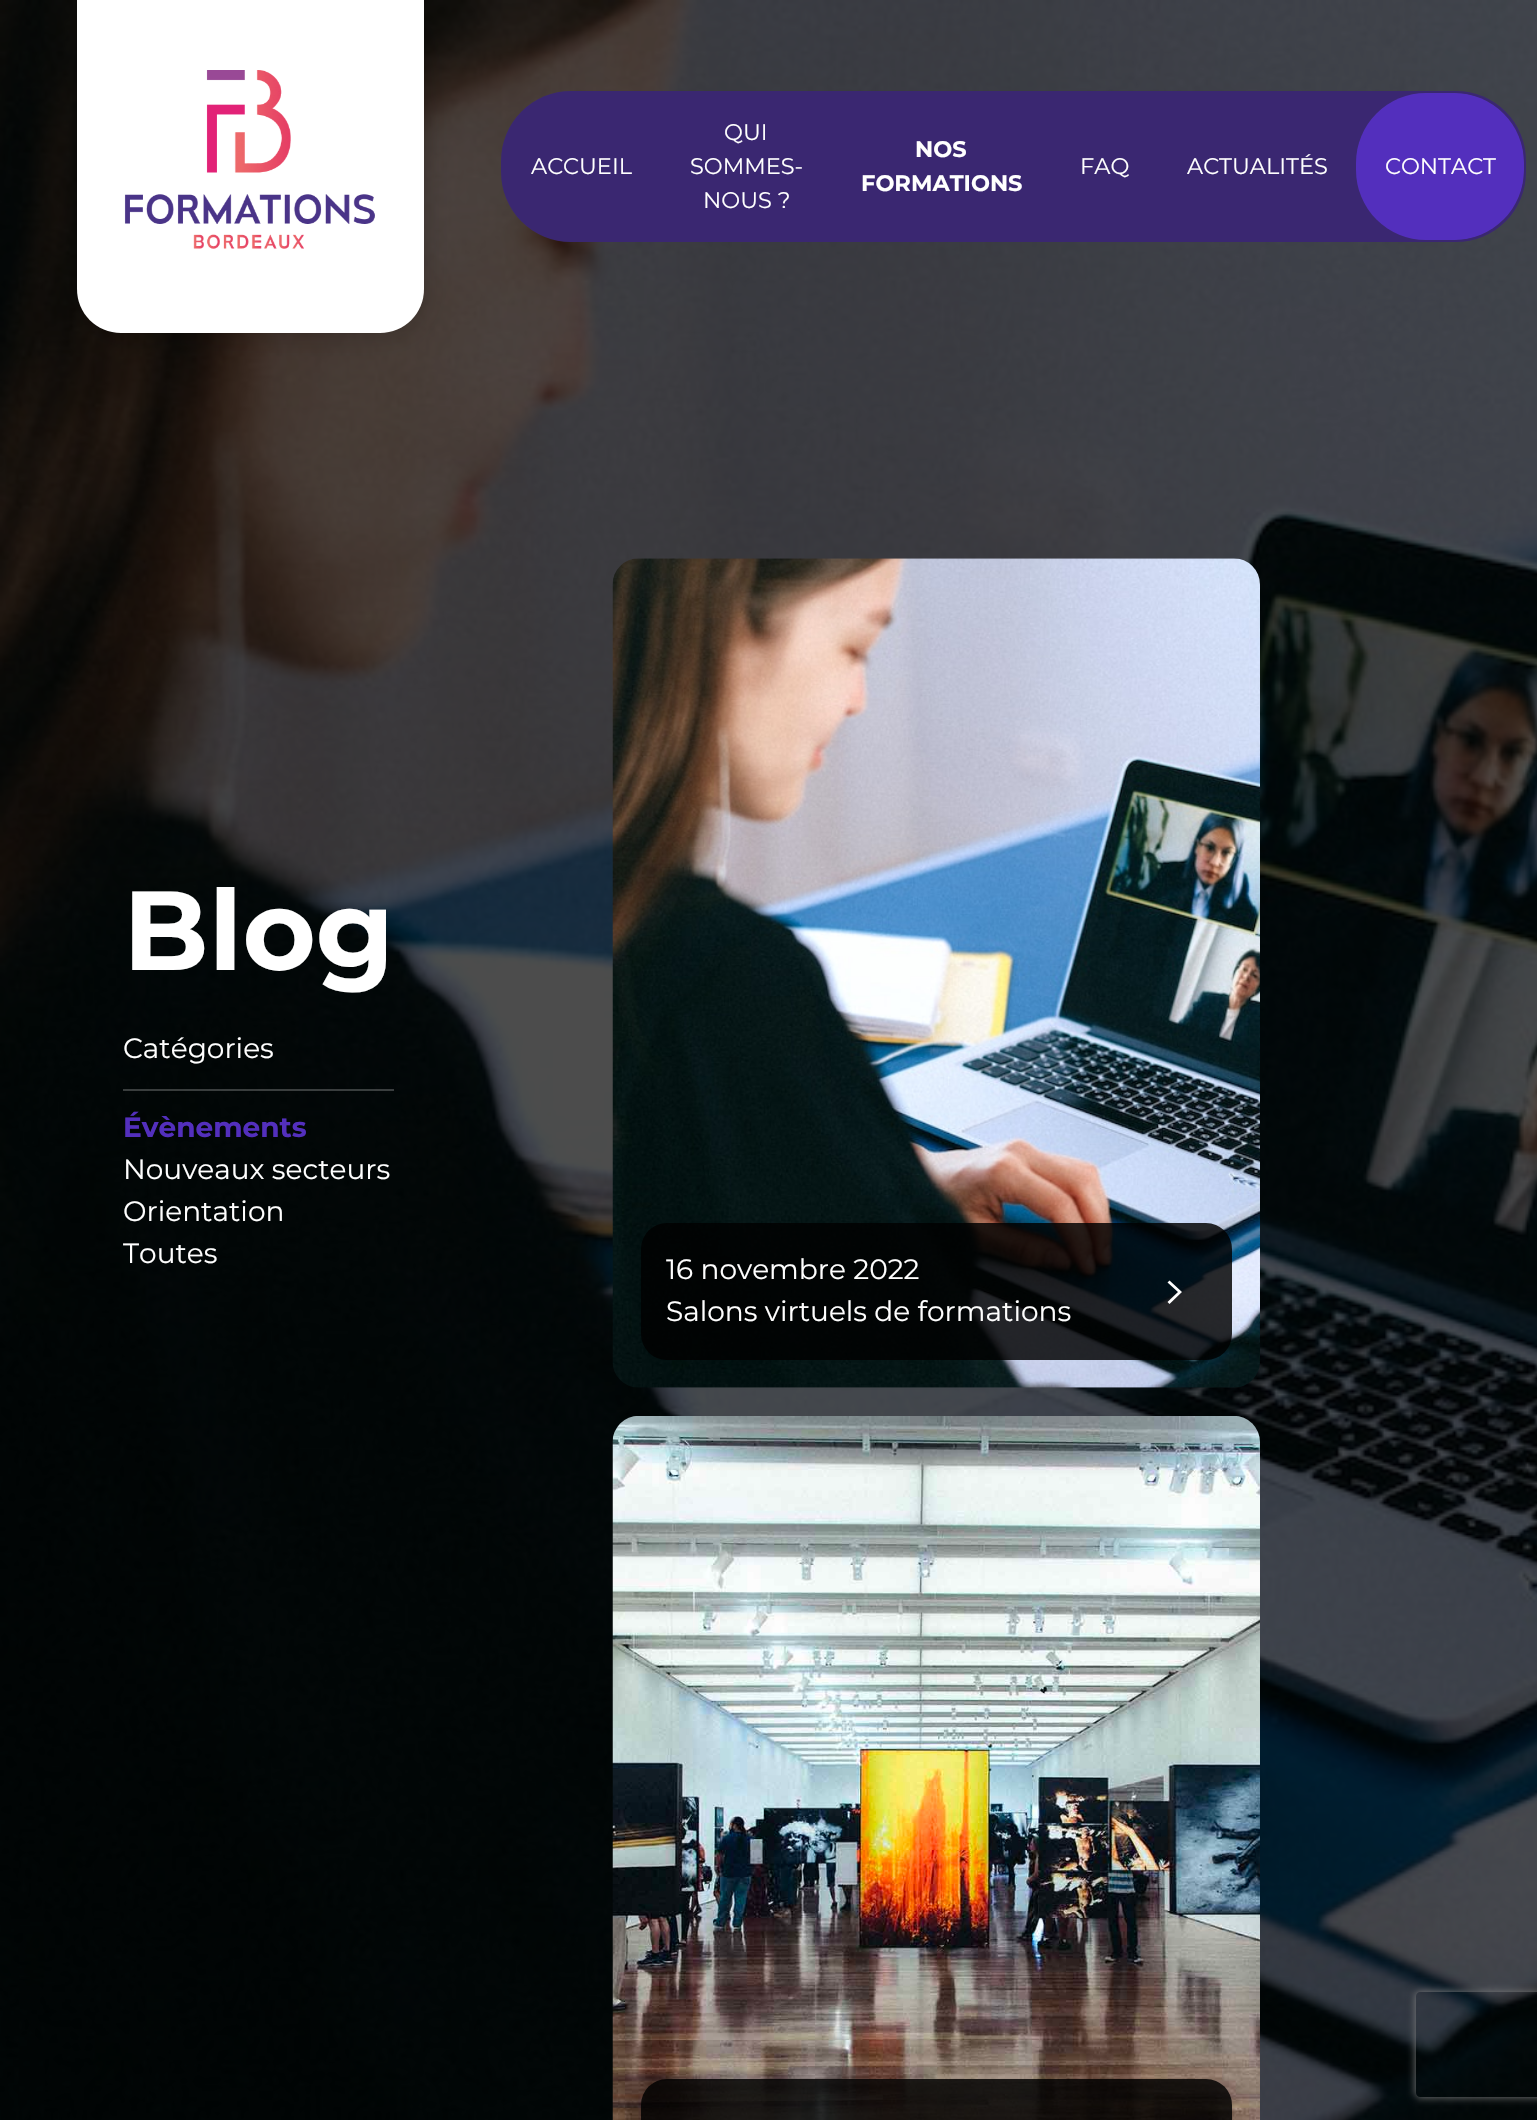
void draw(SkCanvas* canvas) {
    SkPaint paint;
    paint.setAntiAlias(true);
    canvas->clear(0xFFFFFFFF);
    canvas->drawImageRect(SkImages::DeferredFromEncodedData(SkData::MakeFromFileName("img2.png")), SkRect::MakeXYWH(0, 0, 1537, 2120), SkSamplingOptions());
    paint.setColor(0x26000000);
    paint.setMaskFilter(SkMaskFilter::MakeBlur(kNormal_SkBlurStyle, 10.5f));
    canvas->drawRoundRect(SkRect::MakeXYWH(81, 4, 346, 332), 44, 44, paint);
    paint.setMaskFilter(nullptr);
    paint.setColor(0xFFFFFFFF);
    canvas->drawPath(SkPathBuilder().moveTo(77, 0).lineTo(424, 0).lineTo(424, 289).cubicTo(424, 313.5f, 404.5f, 333, 380, 333).lineTo(121, 333).cubicTo(96.5f, 333, 77, 313.5f, 77, 289).close().detach(), paint);
    canvas->drawImageRect(SkImages::DeferredFromEncodedData(SkData::MakeFromFileName("img1.png")), SkRect::MakeXYWH(124, 70, 251, 179), SkSamplingOptions());
    paint.setColor(0xFF3A2771);
    canvas->drawRoundRect(SkRect::MakeXYWH(501, 91, 1025, 151), 70, 70, paint);
    SkFont font1(fontMgr->matchFamilyStyle("Montserrat", SkFontStyle::Normal()), 22.5f);
    font1.setSubpixel(true);
    paint.setColor(0xFFFFFFFF);
    canvas->drawString("ACCUEIL", 531, 174, font1, paint);
    canvas->drawString("QUI", 724, 140, font1, paint);
    canvas->drawString("SOMMES-", 690, 174, font1, paint);
    canvas->drawString("NOUS ?", 703, 208, font1, paint);
    SkFont font2(fontMgr->matchFamilyStyle("Montserrat", SkFontStyle::Bold()), 22.5f);
    font2.setSubpixel(true);
    canvas->drawString("NOS", 915, 157, font2, paint);
    canvas->drawString("FORMATIONS", 861, 191, font2, paint);
    canvas->drawString("FAQ", 1080, 174, font1, paint);
    canvas->drawString("ACTUALITÉS", 1187, 174, font1, paint);
    canvas->save();
    canvas->clipPath(SkPathBuilder().moveTo(570, 93).lineTo(1456, 93).cubicTo(1493.5f, 93, 1524, 123.5f, 1524, 161).lineTo(1524, 172).cubicTo(1524, 209.5f, 1493.5f, 240, 1456, 240).lineTo(570, 240).cubicTo(532.5f, 240, 502, 209.5f, 502, 172).lineTo(502, 161).cubicTo(502, 123.5f, 532.5f, 93, 570, 93).close().detach(), true);
    paint.setColor(0xFF532FBD);
    canvas->drawRoundRect(SkRect::MakeXYWH(1356, 93, 168, 147), 70, 70, paint);
    canvas->restore();
    paint.setColor(0xFFFFFFFF);
    canvas->drawString("CONTACT", 1385, 174, font1, paint);
    SkFont font3(fontMgr->matchFamilyStyle("Montserrat", SkFontStyle::Bold()), 112);
    font3.setSubpixel(true);
    canvas->drawString("Blog", 123, 970, font3, paint);
    SkFont font4(fontMgr->matchFamilyStyle("Montserrat", SkFontStyle::Normal()), 28);
    font4.setSubpixel(true);
    canvas->drawString("Catégories", 123, 1058, font4, paint);
    paint.setColor(0x38FFFFFF);
    canvas->drawRect(SkRect::MakeXYWH(123, 1089, 271, 2), paint);
    SkFont font5(fontMgr->matchFamilyStyle("Montserrat", SkFontStyle::Bold()), 28);
    font5.setSubpixel(true);
    paint.setColor(0xFF532FBD);
    canvas->drawString("Évènements", 123, 1137, font5, paint);
    paint.setColor(0xFFFFFFFF);
    canvas->drawString("Nouveaux secteurs", 123, 1179, font4, paint);
    canvas->drawString("Orientation", 123, 1221, font4, paint);
    canvas->drawString("Toutes", 123, 1263, font4, paint);
    canvas->drawImageRect(SkImages::DeferredFromEncodedData(SkData::MakeFromFileName("img3.png")), SkRect::MakeXYWH(612, 558, 648, 830), SkSamplingOptions());
    paint.setColor(0xD4000000);
    canvas->drawRoundRect(SkRect::MakeXYWH(641, 1223, 591, 137), 26, 26, paint);
    paint.setColor(0xFFFFFFFF);
    canvas->drawString("16 novembre 2022", 666, 1279, font4, paint);
    canvas->drawString("Salons virtuels de formations", 666, 1321, font4, paint);
    canvas->drawPath(SkPathBuilder().moveTo(1178, 1292).lineTo(1167.5f, 1282.5f).lineTo(1169.5f, 1280.5f).lineTo(1182, 1292).lineTo(1169.5f, 1304).lineTo(1167.5f, 1302).close().detach(), paint);
    canvas->drawImageRect(SkImages::DeferredFromEncodedData(SkData::MakeFromFileName("img4.png")), SkRect::MakeXYWH(612, 1416, 648, 704), SkSamplingOptions());
    paint.setColor(0xD4000000);
    canvas->drawRoundRect(SkRect::MakeXYWH(641, 2079, 591, 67), 26, 26, paint);
    canvas->save();
    canvas->clipPath(SkPathBuilder(SkPathFillType::kEvenOdd).moveTo(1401, 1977).lineTo(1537, 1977).lineTo(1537, 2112).lineTo(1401, 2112).close().moveTo(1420, 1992).lineTo(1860, 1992).cubicTo(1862, 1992, 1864, 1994, 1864, 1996).lineTo(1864, 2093).cubicTo(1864, 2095, 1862, 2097, 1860, 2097).lineTo(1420, 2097).cubicTo(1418, 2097, 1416, 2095, 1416, 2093).lineTo(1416, 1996).cubicTo(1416, 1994, 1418, 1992, 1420, 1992).close().detach(), true);
    paint.setColor(0xFF808080);
    paint.setMaskFilter(SkMaskFilter::MakeBlur(kNormal_SkBlurStyle, 4.5f));
    canvas->drawRoundRect(SkRect::MakeXYWH(1416, 1992, 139, 105), 4, 4, paint);
    paint.setMaskFilter(nullptr);
    canvas->restore();
}
